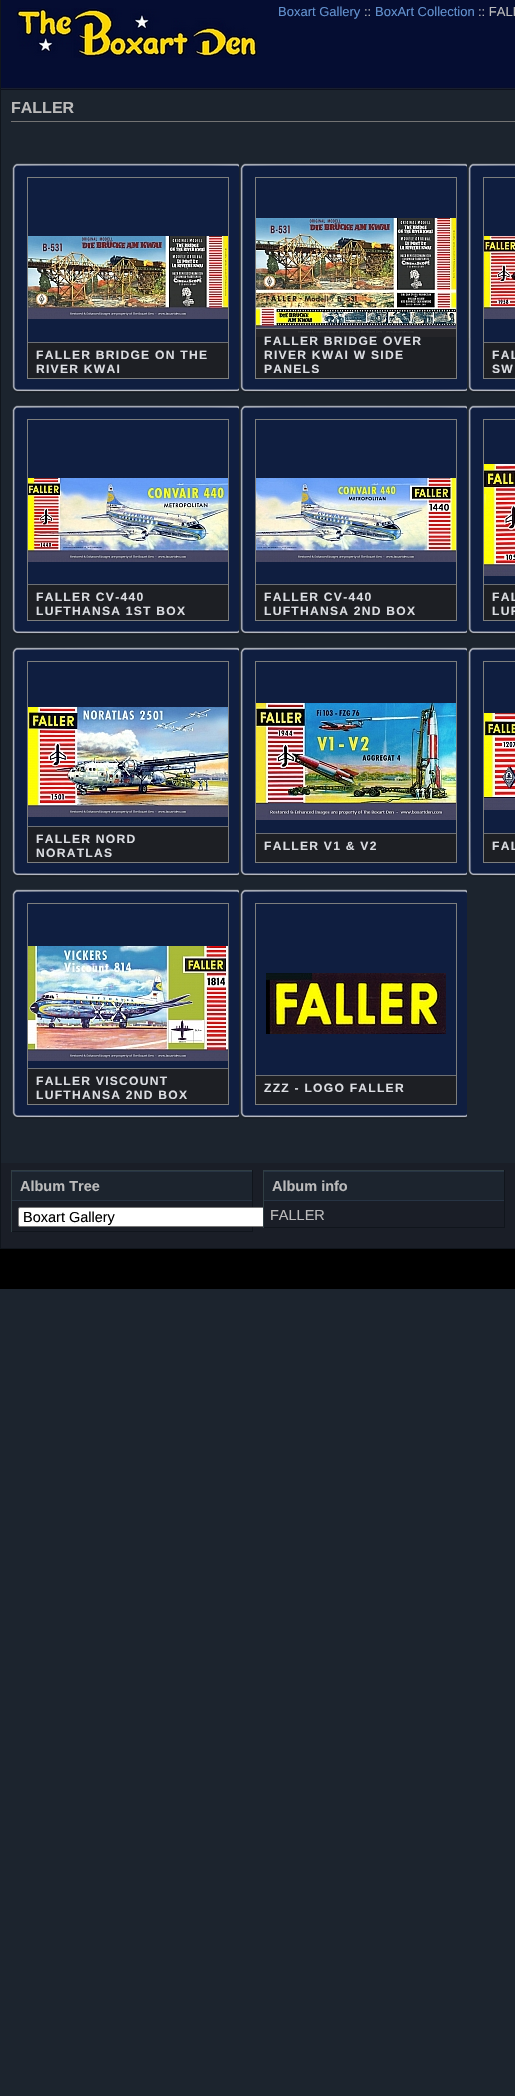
void draw(SkCanvas* canvas) {
    SkPaint paint;
    paint.setAntiAlias(true);
    auto spacedText = [&](const char* s, float x, float y, const SkFont& font, const SkPaint& ink, float letter, float word) {
        std::vector<SkGlyphID> glyphs(font.countText(s, strlen(s), SkTextEncoding::kUTF8));
        std::vector<float> xs(glyphs.size());
        font.textToGlyphs(s, strlen(s), SkTextEncoding::kUTF8, glyphs);
        font.getXPos(glyphs, xs, x);
        float extra = 0;
        for (size_t i = 0; i < glyphs.size(); i++) {
            xs[i] += extra;
            extra += letter + word * (glyphs[i] == font.unicharToGlyph(' '));
        }
        canvas->drawTextBlob(SkTextBlob::MakeFromPosHGlyphs(glyphs, xs, y, font), 0, 0, ink);
    };
    canvas->clear(0xFF1C242E);
    canvas->drawImageRect(SkImages::DeferredFromEncodedData(SkData::MakeFromFileName("img1.png")), SkRect::MakeXYWH(1, 0, 514, 90), SkSamplingOptions());
    canvas->drawImageRect(SkImages::DeferredFromEncodedData(SkData::MakeFromFileName("img2.png")), SkRect::MakeXYWH(17, 8, 240, 50), SkSamplingOptions());
    SkFont font1(fontMgr->matchFamilyStyle("Liberation Sans", SkFontStyle::Normal()), 13);
    font1.setSubpixel(true);
    paint.setColor(0xFF6392CF);
    canvas->drawString("Boxart Gallery", 278, 16, font1, paint);
    paint.setColor(0xFFBBBBBB);
    canvas->drawString("::", 364, 16, font1, paint);
    paint.setColor(0xFF6392CF);
    canvas->drawString("BoxArt Collection", 375, 16, font1, paint);
    paint.setColor(0xFFBBBBBB);
    canvas->drawString(":: FALL", 478, 16, font1, paint);
    paint.setColor(0xFF10151C);
    canvas->drawRect(SkRect::MakeXYWH(0, 0, 1, 1163), paint);
    paint.setColor(0xFF737373);
    canvas->drawRect(SkRect::MakeXYWH(11, 121, 504, 1), paint);
    SkFont font2(fontMgr->matchFamilyStyle("Liberation Sans", SkFontStyle::Bold()), 16);
    font2.setSubpixel(true);
    paint.setColor(0xFFBBBBBB);
    canvas->drawString("FALLER", 11, 113, font2, paint);
    canvas->drawImageRect(SkImages::DeferredFromEncodedData(SkData::MakeFromFileName("img3.png")), SkRect::MakeXYWH(12, 163, 227, 230), SkSamplingOptions());
    paint.setStyle(SkPaint::kStroke_Style);
    paint.setStrokeWidth(1);
    paint.setColor(0xFF7D7E7D);
    canvas->drawRect(SkRect::MakeXYWH(27.5f, 177.5f, 201, 201), paint);
    canvas->drawImageRect(SkImages::DeferredFromEncodedData(SkData::MakeFromFileName("img4.png")), SkRect::MakeXYWH(28, 236, 200, 83), SkSamplingOptions());
    paint.setStyle(SkPaint::kFill_Style);
    paint.setColor(0xD91E1E1E);
    canvas->drawRect(SkRect::MakeXYWH(28, 343, 200, 35), paint);
    paint.setColor(0xFF6C6F74);
    canvas->drawRect(SkRect::MakeXYWH(28, 342, 200, 1), paint);
    SkFont font3(fontMgr->matchFamilyStyle("Liberation Sans", SkFontStyle::Bold()), 12.1f);
    font3.setSubpixel(true);
    paint.setColor(0xFFDBDDE2);
    spacedText("FALLER BRIDGE ON THE", 36, 359, font3, paint, 1.25f, 0);
    spacedText("RIVER KWAI", 36, 373, font3, paint, 1.25f, 0);
    canvas->drawImageRect(SkImages::DeferredFromEncodedData(SkData::MakeFromFileName("img3.png")), SkRect::MakeXYWH(240, 163, 227, 230), SkSamplingOptions());
    paint.setStyle(SkPaint::kStroke_Style);
    paint.setColor(0xFF7D7E7D);
    canvas->drawRect(SkRect::MakeXYWH(255.5f, 177.5f, 201, 201), paint);
    canvas->drawImageRect(SkImages::DeferredFromEncodedData(SkData::MakeFromFileName("img5.png")), SkRect::MakeXYWH(256, 218, 200, 119), SkSamplingOptions());
    paint.setStyle(SkPaint::kFill_Style);
    paint.setColor(0xD91E1E1E);
    canvas->drawRect(SkRect::MakeXYWH(256, 329, 200, 49), paint);
    paint.setColor(0xFF707170);
    canvas->drawRect(SkRect::MakeXYWH(256, 328, 200, 1), paint);
    paint.setColor(0xFFDBDDE2);
    spacedText("FALLER BRIDGE OVER", 264, 345, font3, paint, 1.25f, 0);
    spacedText("RIVER KWAI W SIDE", 264, 359, font3, paint, 1.25f, 0);
    spacedText("PANELS", 264, 373, font3, paint, 1.25f, 0);
    canvas->drawImageRect(SkImages::DeferredFromEncodedData(SkData::MakeFromFileName("img6.png")), SkRect::MakeXYWH(468, 163, 47, 230), SkSamplingOptions());
    paint.setStyle(SkPaint::kStroke_Style);
    paint.setColor(0xFF7D7E7D);
    canvas->drawRect(SkRect::MakeXYWH(483.5f, 177.5f, 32, 201), paint);
    canvas->drawImageRect(SkImages::DeferredFromEncodedData(SkData::MakeFromFileName("img7.png")), SkRect::MakeXYWH(484, 236, 31, 83), SkSamplingOptions());
    paint.setStyle(SkPaint::kFill_Style);
    paint.setColor(0xD91E1E1E);
    canvas->drawRect(SkRect::MakeXYWH(484, 343, 31, 35), paint);
    paint.setColor(0xFF6C6F74);
    canvas->drawRect(SkRect::MakeXYWH(484, 342, 31, 1), paint);
    paint.setColor(0xFFDBDDE2);
    spacedText("FAL", 492, 359, font3, paint, 1.25f, 0);
    spacedText("SW", 492, 373, font3, paint, 1.25f, 0);
    canvas->drawImageRect(SkImages::DeferredFromEncodedData(SkData::MakeFromFileName("img3.png")), SkRect::MakeXYWH(12, 405, 227, 230), SkSamplingOptions());
    paint.setStyle(SkPaint::kStroke_Style);
    paint.setColor(0xFF7D7E7D);
    canvas->drawRect(SkRect::MakeXYWH(27.5f, 419.5f, 201, 201), paint);
    canvas->drawImageRect(SkImages::DeferredFromEncodedData(SkData::MakeFromFileName("img8.png")), SkRect::MakeXYWH(28, 478, 200, 84), SkSamplingOptions());
    paint.setStyle(SkPaint::kFill_Style);
    paint.setColor(0xD91E1E1E);
    canvas->drawRect(SkRect::MakeXYWH(28, 585, 200, 35), paint);
    paint.setColor(0xFF6C6F74);
    canvas->drawRect(SkRect::MakeXYWH(28, 584, 200, 1), paint);
    paint.setColor(0xFFDBDDE2);
    spacedText("FALLER CV-440", 36, 601, font3, paint, 1.25f, 0);
    spacedText("LUFTHANSA 1ST BOX", 36, 615, font3, paint, 1.25f, 0);
    canvas->drawImageRect(SkImages::DeferredFromEncodedData(SkData::MakeFromFileName("img3.png")), SkRect::MakeXYWH(240, 405, 227, 230), SkSamplingOptions());
    paint.setStyle(SkPaint::kStroke_Style);
    paint.setColor(0xFF7D7E7D);
    canvas->drawRect(SkRect::MakeXYWH(255.5f, 419.5f, 201, 201), paint);
    canvas->drawImageRect(SkImages::DeferredFromEncodedData(SkData::MakeFromFileName("img9.png")), SkRect::MakeXYWH(256, 478, 200, 84), SkSamplingOptions());
    paint.setStyle(SkPaint::kFill_Style);
    paint.setColor(0xD91E1E1E);
    canvas->drawRect(SkRect::MakeXYWH(256, 585, 200, 35), paint);
    paint.setColor(0xFF6C6F74);
    canvas->drawRect(SkRect::MakeXYWH(256, 584, 200, 1), paint);
    paint.setColor(0xFFDBDDE2);
    spacedText("FALLER CV-440", 264, 601, font3, paint, 1.25f, 0);
    spacedText("LUFTHANSA 2ND BOX", 264, 615, font3, paint, 1.25f, 0);
    canvas->drawImageRect(SkImages::DeferredFromEncodedData(SkData::MakeFromFileName("img6.png")), SkRect::MakeXYWH(468, 405, 47, 230), SkSamplingOptions());
    paint.setStyle(SkPaint::kStroke_Style);
    paint.setColor(0xFF7D7E7D);
    canvas->drawRect(SkRect::MakeXYWH(483.5f, 419.5f, 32, 201), paint);
    canvas->drawImageRect(SkImages::DeferredFromEncodedData(SkData::MakeFromFileName("img10.png")), SkRect::MakeXYWH(484, 464, 31, 112), SkSamplingOptions());
    paint.setStyle(SkPaint::kFill_Style);
    paint.setColor(0xD91E1E1E);
    canvas->drawRect(SkRect::MakeXYWH(484, 585, 31, 35), paint);
    paint.setColor(0xFF6C6F74);
    canvas->drawRect(SkRect::MakeXYWH(484, 584, 31, 1), paint);
    paint.setColor(0xFFDBDDE2);
    spacedText("FAL", 492, 601, font3, paint, 1.25f, 0);
    spacedText("LUF", 492, 615, font3, paint, 1.25f, 0);
    canvas->drawImageRect(SkImages::DeferredFromEncodedData(SkData::MakeFromFileName("img3.png")), SkRect::MakeXYWH(12, 647, 227, 230), SkSamplingOptions());
    paint.setStyle(SkPaint::kStroke_Style);
    paint.setColor(0xFF7D7E7D);
    canvas->drawRect(SkRect::MakeXYWH(27.5f, 661.5f, 201, 201), paint);
    canvas->drawImageRect(SkImages::DeferredFromEncodedData(SkData::MakeFromFileName("img11.png")), SkRect::MakeXYWH(28, 707, 200, 110), SkSamplingOptions());
    paint.setStyle(SkPaint::kFill_Style);
    paint.setColor(0xD91E1E1E);
    canvas->drawRect(SkRect::MakeXYWH(28, 827, 200, 35), paint);
    paint.setColor(0xFF6C6F74);
    canvas->drawRect(SkRect::MakeXYWH(28, 826, 200, 1), paint);
    paint.setColor(0xFFDBDDE2);
    spacedText("FALLER NORD", 36, 843, font3, paint, 1.25f, 0);
    spacedText("NORATLAS", 36, 857, font3, paint, 1.25f, 0);
    canvas->drawImageRect(SkImages::DeferredFromEncodedData(SkData::MakeFromFileName("img3.png")), SkRect::MakeXYWH(240, 647, 227, 230), SkSamplingOptions());
    paint.setStyle(SkPaint::kStroke_Style);
    paint.setColor(0xFF7D7E7D);
    canvas->drawRect(SkRect::MakeXYWH(255.5f, 661.5f, 201, 201), paint);
    canvas->drawImageRect(SkImages::DeferredFromEncodedData(SkData::MakeFromFileName("img12.png")), SkRect::MakeXYWH(256, 703, 200, 117), SkSamplingOptions());
    paint.setStyle(SkPaint::kFill_Style);
    paint.setColor(0xD91E1E1E);
    canvas->drawRect(SkRect::MakeXYWH(256, 834, 200, 28), paint);
    paint.setColor(0xFF6C6F74);
    canvas->drawRect(SkRect::MakeXYWH(256, 833, 200, 1), paint);
    paint.setColor(0xFFDBDDE2);
    spacedText("FALLER V1 & V2", 264, 850, font3, paint, 1.25f, 0);
    canvas->drawImageRect(SkImages::DeferredFromEncodedData(SkData::MakeFromFileName("img6.png")), SkRect::MakeXYWH(468, 647, 47, 230), SkSamplingOptions());
    paint.setStyle(SkPaint::kStroke_Style);
    paint.setColor(0xFF7D7E7D);
    canvas->drawRect(SkRect::MakeXYWH(483.5f, 661.5f, 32, 201), paint);
    canvas->drawImageRect(SkImages::DeferredFromEncodedData(SkData::MakeFromFileName("img13.png")), SkRect::MakeXYWH(484, 713, 31, 97), SkSamplingOptions());
    paint.setStyle(SkPaint::kFill_Style);
    paint.setColor(0xD91E1E1E);
    canvas->drawRect(SkRect::MakeXYWH(484, 834, 31, 28), paint);
    paint.setColor(0xFF6C6F74);
    canvas->drawRect(SkRect::MakeXYWH(484, 833, 31, 1), paint);
    paint.setColor(0xFFDBDDE2);
    spacedText("FAL", 492, 850, font3, paint, 1.25f, 0);
    canvas->drawImageRect(SkImages::DeferredFromEncodedData(SkData::MakeFromFileName("img3.png")), SkRect::MakeXYWH(12, 889, 227, 230), SkSamplingOptions());
    paint.setStyle(SkPaint::kStroke_Style);
    paint.setColor(0xFF7D7E7D);
    canvas->drawRect(SkRect::MakeXYWH(27.5f, 903.5f, 201, 201), paint);
    canvas->drawImageRect(SkImages::DeferredFromEncodedData(SkData::MakeFromFileName("img14.png")), SkRect::MakeXYWH(28, 946, 200, 115), SkSamplingOptions());
    paint.setStyle(SkPaint::kFill_Style);
    paint.setColor(0xD91E1E1E);
    canvas->drawRect(SkRect::MakeXYWH(28, 1069, 200, 35), paint);
    paint.setColor(0xFF6C6F74);
    canvas->drawRect(SkRect::MakeXYWH(28, 1068, 200, 1), paint);
    paint.setColor(0xFFDBDDE2);
    spacedText("FALLER VISCOUNT", 36, 1085, font3, paint, 1.25f, 0);
    spacedText("LUFTHANSA 2ND BOX", 36, 1099, font3, paint, 1.25f, 0);
    canvas->drawImageRect(SkImages::DeferredFromEncodedData(SkData::MakeFromFileName("img3.png")), SkRect::MakeXYWH(240, 889, 227, 230), SkSamplingOptions());
    paint.setStyle(SkPaint::kStroke_Style);
    paint.setColor(0xFF7D7E7D);
    canvas->drawRect(SkRect::MakeXYWH(255.5f, 903.5f, 201, 201), paint);
    canvas->drawImageRect(SkImages::DeferredFromEncodedData(SkData::MakeFromFileName("img15.png")), SkRect::MakeXYWH(266, 973, 180, 61), SkSamplingOptions());
    paint.setStyle(SkPaint::kFill_Style);
    paint.setColor(0xD91E1E1E);
    canvas->drawRect(SkRect::MakeXYWH(256, 1076, 200, 28), paint);
    paint.setColor(0xFF6C6F74);
    canvas->drawRect(SkRect::MakeXYWH(256, 1075, 200, 1), paint);
    paint.setColor(0xFFDBDDE2);
    spacedText("ZZZ - LOGO FALLER", 264, 1092, font3, paint, 1.25f, 0);
    paint.setColor(0xFF1A1E27);
    canvas->drawRect(SkRect::MakeXYWH(1, 1163, 514, 85), paint);
    paint.setColor(0xFF10151C);
    canvas->drawRect(SkRect::MakeXYWH(0, 1248, 515, 1), paint);
    canvas->drawRect(SkRect::MakeXYWH(0, 1163, 1, 86), paint);
    paint.setColor(0xFF303E43);
    canvas->drawRect(SkRect::MakeXYWH(11, 1170, 242, 1), paint);
    paint.setColor(0xFF10151C);
    canvas->drawRect(SkRect::MakeXYWH(252, 1170, 1, 62), paint);
    canvas->drawRect(SkRect::MakeXYWH(11, 1231, 242, 1), paint);
    paint.setColor(0xFF303E43);
    canvas->drawRect(SkRect::MakeXYWH(11, 1170, 1, 62), paint);
    paint.setColor(0xFF1C242E);
    canvas->drawRect(SkRect::MakeXYWH(12, 1172, 240, 28), paint);
    paint.setColor(0xFF273444);
    canvas->drawRect(SkRect::MakeXYWH(12, 1171, 240, 1), paint);
    canvas->drawRect(SkRect::MakeXYWH(12, 1200, 240, 1), paint);
    SkFont font4(fontMgr->matchFamilyStyle("Liberation Sans", SkFontStyle::Bold()), 14.5f);
    font4.setSubpixel(true);
    paint.setColor(0xFFBBBBBB);
    canvas->drawString("Album Tree", 20, 1191, font4, paint);
    paint.setColor(0xFFFFFFFF);
    canvas->drawRoundRect(SkRect::MakeXYWH(18.5f, 1207.5f, 345, 19), 1.5f, 1.5f, paint);
    paint.setStyle(SkPaint::kStroke_Style);
    paint.setColor(0xFF767676);
    canvas->drawRoundRect(SkRect::MakeXYWH(18.5f, 1207.5f, 345, 19), 1.5f, 1.5f, paint);
    SkFont font5(fontMgr->matchFamilyStyle("Liberation Sans", SkFontStyle::Normal()), 14.5f);
    font5.setSubpixel(true);
    paint.setStyle(SkPaint::kFill_Style);
    paint.setColor(0xFF000000);
    canvas->drawString("Boxart Gallery", 23, 1222, font5, paint);
    paint.setColor(0xFF1A1E27);
    canvas->drawRect(SkRect::MakeXYWH(264, 1207, 100, 20), paint);
    paint.setColor(0xFF303E43);
    canvas->drawRect(SkRect::MakeXYWH(263, 1170, 242, 1), paint);
    paint.setColor(0xFF10151C);
    canvas->drawRect(SkRect::MakeXYWH(504, 1170, 1, 58), paint);
    canvas->drawRect(SkRect::MakeXYWH(263, 1227, 242, 1), paint);
    paint.setColor(0xFF303E43);
    canvas->drawRect(SkRect::MakeXYWH(263, 1170, 1, 58), paint);
    paint.setColor(0xFF1C242E);
    canvas->drawRect(SkRect::MakeXYWH(264, 1172, 240, 28), paint);
    paint.setColor(0xFF273444);
    canvas->drawRect(SkRect::MakeXYWH(264, 1171, 240, 1), paint);
    canvas->drawRect(SkRect::MakeXYWH(264, 1200, 240, 1), paint);
    paint.setColor(0xFFBBBBBB);
    canvas->drawString("Album info", 272, 1191, font4, paint);
    canvas->drawString("FALLER", 270, 1220, font5, paint);
    paint.setColor(0xFF000000);
    canvas->drawRect(SkRect::MakeXYWH(0, 1249, 515, 40), paint);
}
